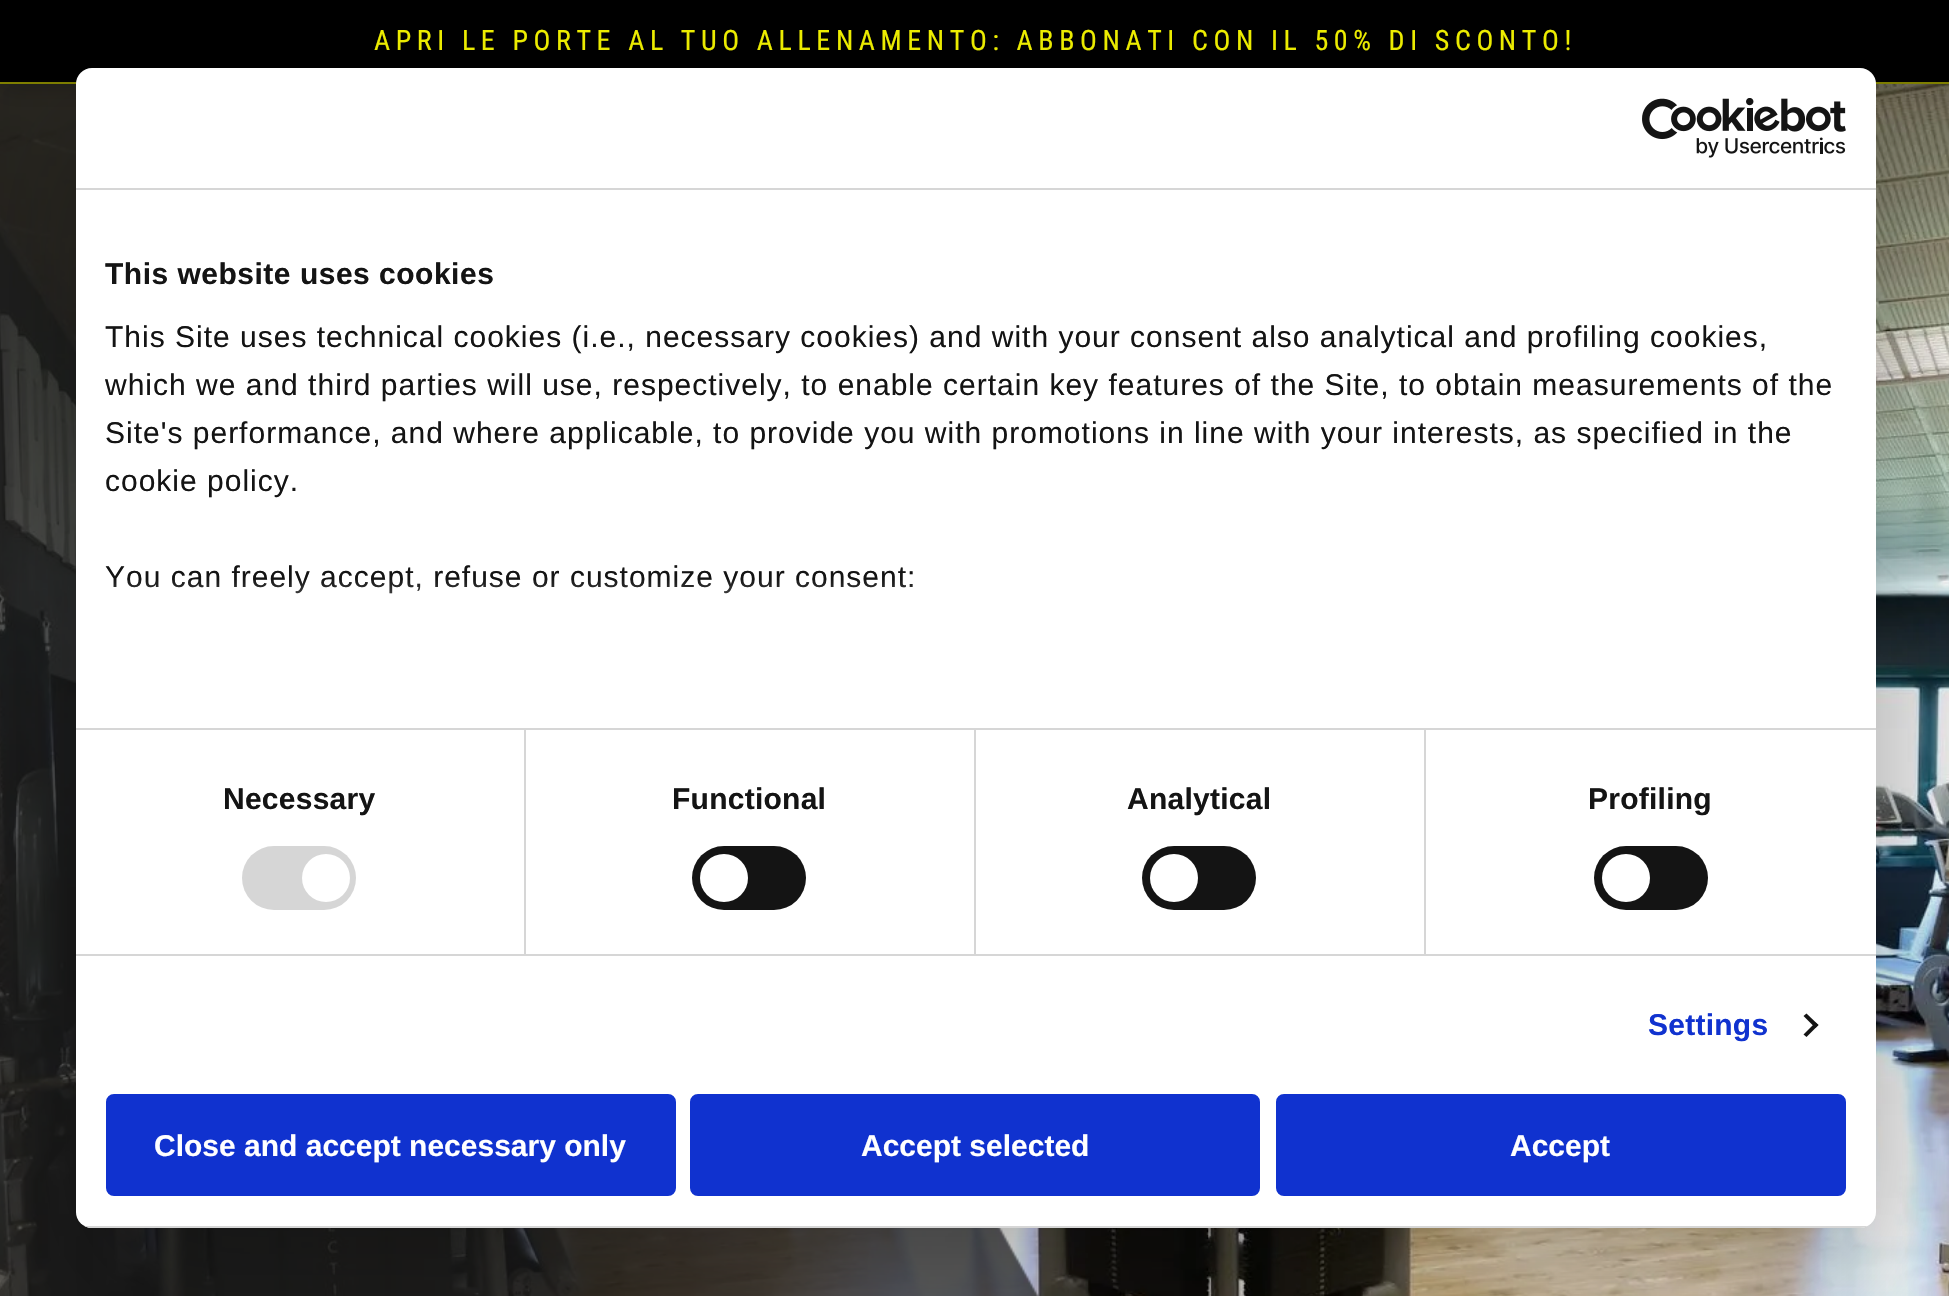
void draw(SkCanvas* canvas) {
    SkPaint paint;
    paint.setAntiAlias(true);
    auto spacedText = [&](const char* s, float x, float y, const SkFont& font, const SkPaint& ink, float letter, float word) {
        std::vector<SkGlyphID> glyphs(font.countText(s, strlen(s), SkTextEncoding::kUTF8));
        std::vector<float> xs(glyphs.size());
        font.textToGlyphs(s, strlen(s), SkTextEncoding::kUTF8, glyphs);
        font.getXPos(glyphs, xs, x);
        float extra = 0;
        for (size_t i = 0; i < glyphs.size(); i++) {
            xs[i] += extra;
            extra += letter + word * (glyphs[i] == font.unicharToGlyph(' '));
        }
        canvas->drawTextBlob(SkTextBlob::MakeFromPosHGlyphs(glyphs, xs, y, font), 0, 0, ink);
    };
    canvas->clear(0xFFFFFFFF);
    canvas->drawImageRect(SkImages::DeferredFromEncodedData(SkData::MakeFromFileName("img1.png")), SkRect::MakeXYWH(0, 84, 1949, 1212), SkSamplingOptions());
    paint.setColor(0xB3222222);
    canvas->drawRect(SkRect::MakeXYWH(0, 84, 976, 1212), paint);
    paint.setColor(0x30000000);
    paint.setMaskFilter(SkMaskFilter::MakeBlur(kNormal_SkBlurStyle, 11));
    canvas->drawRect(SkRect::MakeXYWH(0, 6, 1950, 84), paint);
    paint.setMaskFilter(nullptr);
    paint.setColor(0xFF000000);
    canvas->drawRect(SkRect::MakeXYWH(0, 0, 1949, 82), paint);
    paint.setColor(0xFF818100);
    canvas->drawRect(SkRect::MakeXYWH(0, 82, 1949, 2), paint);
    SkFont font1(fontMgr->matchFamilyStyle("Roboto Condensed", SkFontStyle::Normal()), 28);
    font1.setSubpixel(true);
    paint.setColor(0xFFF2F200);
    spacedText("APRI LE PORTE AL TUO ALLENAMENTO: ABBONATI CON IL 50% DI SCONTO!", 374, 50, font1, paint, 5.6f, 0);
    canvas->drawImageRect(SkImages::DeferredFromEncodedData(SkData::MakeFromFileName("img2.png")), SkRect::MakeXYWH(976, 1228, 63, 68), SkSamplingOptions());
    paint.setColor(0x4D000000);
    paint.setMaskFilter(SkMaskFilter::MakeBlur(kNormal_SkBlurStyle, 68));
    canvas->drawRoundRect(SkRect::MakeXYWH(76, 132, 1800, 1160), 16, 16, paint);
    paint.setMaskFilter(nullptr);
    paint.setColor(0xFFFFFFFF);
    canvas->drawRoundRect(SkRect::MakeXYWH(76, 68, 1800, 1160), 16, 16, paint);
    paint.setColor(0xFFD6D6D6);
    canvas->drawRect(SkRect::MakeXYWH(76, 188, 1800, 2), paint);
    canvas->drawImageRect(SkImages::DeferredFromEncodedData(SkData::MakeFromFileName("img3.png")), SkRect::MakeXYWH(1642, 98, 204, 60), SkSamplingOptions());
    canvas->drawRect(SkRect::MakeXYWH(76, 728, 1800, 2), paint);
    SkFont font2(fontMgr->matchFamilyStyle("Liberation Sans", SkFontStyle::Bold()), 30);
    font2.setSubpixel(true);
    paint.setColor(0xFF141414);
    spacedText("This website uses cookies", 105, 284, font2, paint, 0.5f, 0);
    SkFont font3(fontMgr->matchFamilyStyle("Liberation Sans", SkFontStyle::Normal()), 30);
    font3.setSubpixel(true);
    spacedText("This Site uses technical cookies (i.e., necessary cookies) and with your consent also analytical and profiling cookies,", 105, 347, font3, paint, 1, 0);
    spacedText("which we and third parties will use, respectively, to enable certain key features of the Site, to obtain measurements of the", 105, 395, font3, paint, 1, 0);
    spacedText("Site's performance, and where applicable, to provide you with promotions in line with your interests, as specified in the", 105, 443, font3, paint, 1, 0);
    spacedText("cookie policy.", 105, 491, font3, paint, 1, 0);
    spacedText("You can freely accept, refuse or customize your consent:", 105, 587, font3, paint, 1, 0);
    {
        const SkColor colors[] = {0xFFFFFFFF, 0xCCFFFFFF, 0x00FFFFFF};
        const float stops[] = {0, 0.5f, 1};
        const SkPoint ends[] = {{963, 728}, {963, 578}};
        paint.setShader(SkGradientShader::MakeLinear(ends, colors, stops, 3, SkTileMode::kClamp));
        paint.setAlpha(255);
    }
    canvas->drawRect(SkRect::MakeXYWH(113, 580, 800, 14), paint);
    paint.setShader(nullptr);
    paint.setColor(0xFFD6D6D6);
    canvas->drawRect(SkRect::MakeXYWH(76, 954, 1800, 2), paint);
    canvas->drawRect(SkRect::MakeXYWH(524, 730, 2, 224), paint);
    paint.setColor(0xFF141414);
    spacedText("Necessary", 223, 809, font2, paint, 0.25f, 0);
    paint.setColor(0xFFD6D6D6);
    canvas->drawRoundRect(SkRect::MakeXYWH(242, 846, 114, 64), 32, 32, paint);
    paint.setColor(0xFFFFFFFF);
    canvas->drawCircle(326, 878, 24, paint);
    paint.setColor(0xFFD6D6D6);
    canvas->drawRect(SkRect::MakeXYWH(974, 730, 2, 224), paint);
    paint.setColor(0xFF141414);
    spacedText("Functional", 672, 809, font2, paint, 0.25f, 0);
    canvas->drawRoundRect(SkRect::MakeXYWH(692, 846, 114, 64), 32, 32, paint);
    paint.setColor(0xFFFFFFFF);
    canvas->drawCircle(724, 878, 24, paint);
    paint.setColor(0xFFD6D6D6);
    canvas->drawRect(SkRect::MakeXYWH(1424, 730, 2, 224), paint);
    paint.setColor(0xFF141414);
    spacedText("Analytical", 1127, 809, font2, paint, 0.25f, 0);
    canvas->drawRoundRect(SkRect::MakeXYWH(1142, 846, 114, 64), 32, 32, paint);
    paint.setColor(0xFFFFFFFF);
    canvas->drawCircle(1174, 878, 24, paint);
    paint.setColor(0xFF141414);
    spacedText("Profiling", 1588, 809, font2, paint, 0.25f, 0);
    canvas->drawRoundRect(SkRect::MakeXYWH(1594, 846, 114, 64), 32, 32, paint);
    paint.setColor(0xFFFFFFFF);
    canvas->drawCircle(1626, 878, 24, paint);
    paint.setColor(0xFF1032CF);
    spacedText("Settings", 1648, 1035, font2, paint, 0.25f, 0);
    paint.setColor(0xFF141414);
    canvas->drawPath(SkPathBuilder().moveTo(1806.5f, 1013.5f).lineTo(1818.5f, 1025).lineTo(1815.5f, 1028).lineTo(1803.5f, 1016).close().detach(), paint);
    canvas->drawPath(SkPathBuilder().moveTo(1815.5f, 1022.5f).lineTo(1818.5f, 1025).lineTo(1806.5f, 1037).lineTo(1803.5f, 1034.5f).close().detach(), paint);
    canvas->save();
    canvas->clipPath(SkPathBuilder().moveTo(92, 68).lineTo(1860, 68).cubicTo(1869, 68, 1876, 75, 1876, 84).lineTo(1876, 1212).cubicTo(1876, 1221, 1869, 1228, 1860, 1228).lineTo(92, 1228).cubicTo(83, 1228, 76, 1221, 76, 1212).lineTo(76, 84).cubicTo(76, 75, 83, 68, 92, 68).close().detach(), true);
    paint.setColor(0xFFD6D6D6);
    canvas->drawRect(SkRect::MakeXYWH(76, 1226, 1800, 2), paint);
    canvas->restore();
    paint.setColor(0xFF1032CF);
    canvas->drawRoundRect(SkRect::MakeXYWH(108, 1096, 566, 98), 6, 6, paint);
    paint.setStyle(SkPaint::kStroke_Style);
    paint.setStrokeWidth(4);
    canvas->drawRoundRect(SkRect::MakeXYWH(108, 1096, 566, 98), 6, 6, paint);
    paint.setStyle(SkPaint::kFill_Style);
    paint.setColor(0xFFFFFFFF);
    canvas->drawString("Close and accept necessary only", 154, 1156, font2, paint);
    paint.setColor(0xFF1032CF);
    canvas->drawRoundRect(SkRect::MakeXYWH(692, 1096, 566, 98), 6, 6, paint);
    paint.setStyle(SkPaint::kStroke_Style);
    canvas->drawRoundRect(SkRect::MakeXYWH(692, 1096, 566, 98), 6, 6, paint);
    paint.setStyle(SkPaint::kFill_Style);
    paint.setColor(0xFFFFFFFF);
    canvas->drawString("Accept selected", 861, 1156, font2, paint);
    paint.setColor(0xFF1032CF);
    canvas->drawRoundRect(SkRect::MakeXYWH(1278, 1096, 566, 98), 6, 6, paint);
    paint.setStyle(SkPaint::kStroke_Style);
    canvas->drawRoundRect(SkRect::MakeXYWH(1278, 1096, 566, 98), 6, 6, paint);
    paint.setStyle(SkPaint::kFill_Style);
    paint.setColor(0xFFFFFFFF);
    canvas->drawString("Accept", 1510, 1156, font2, paint);
}
